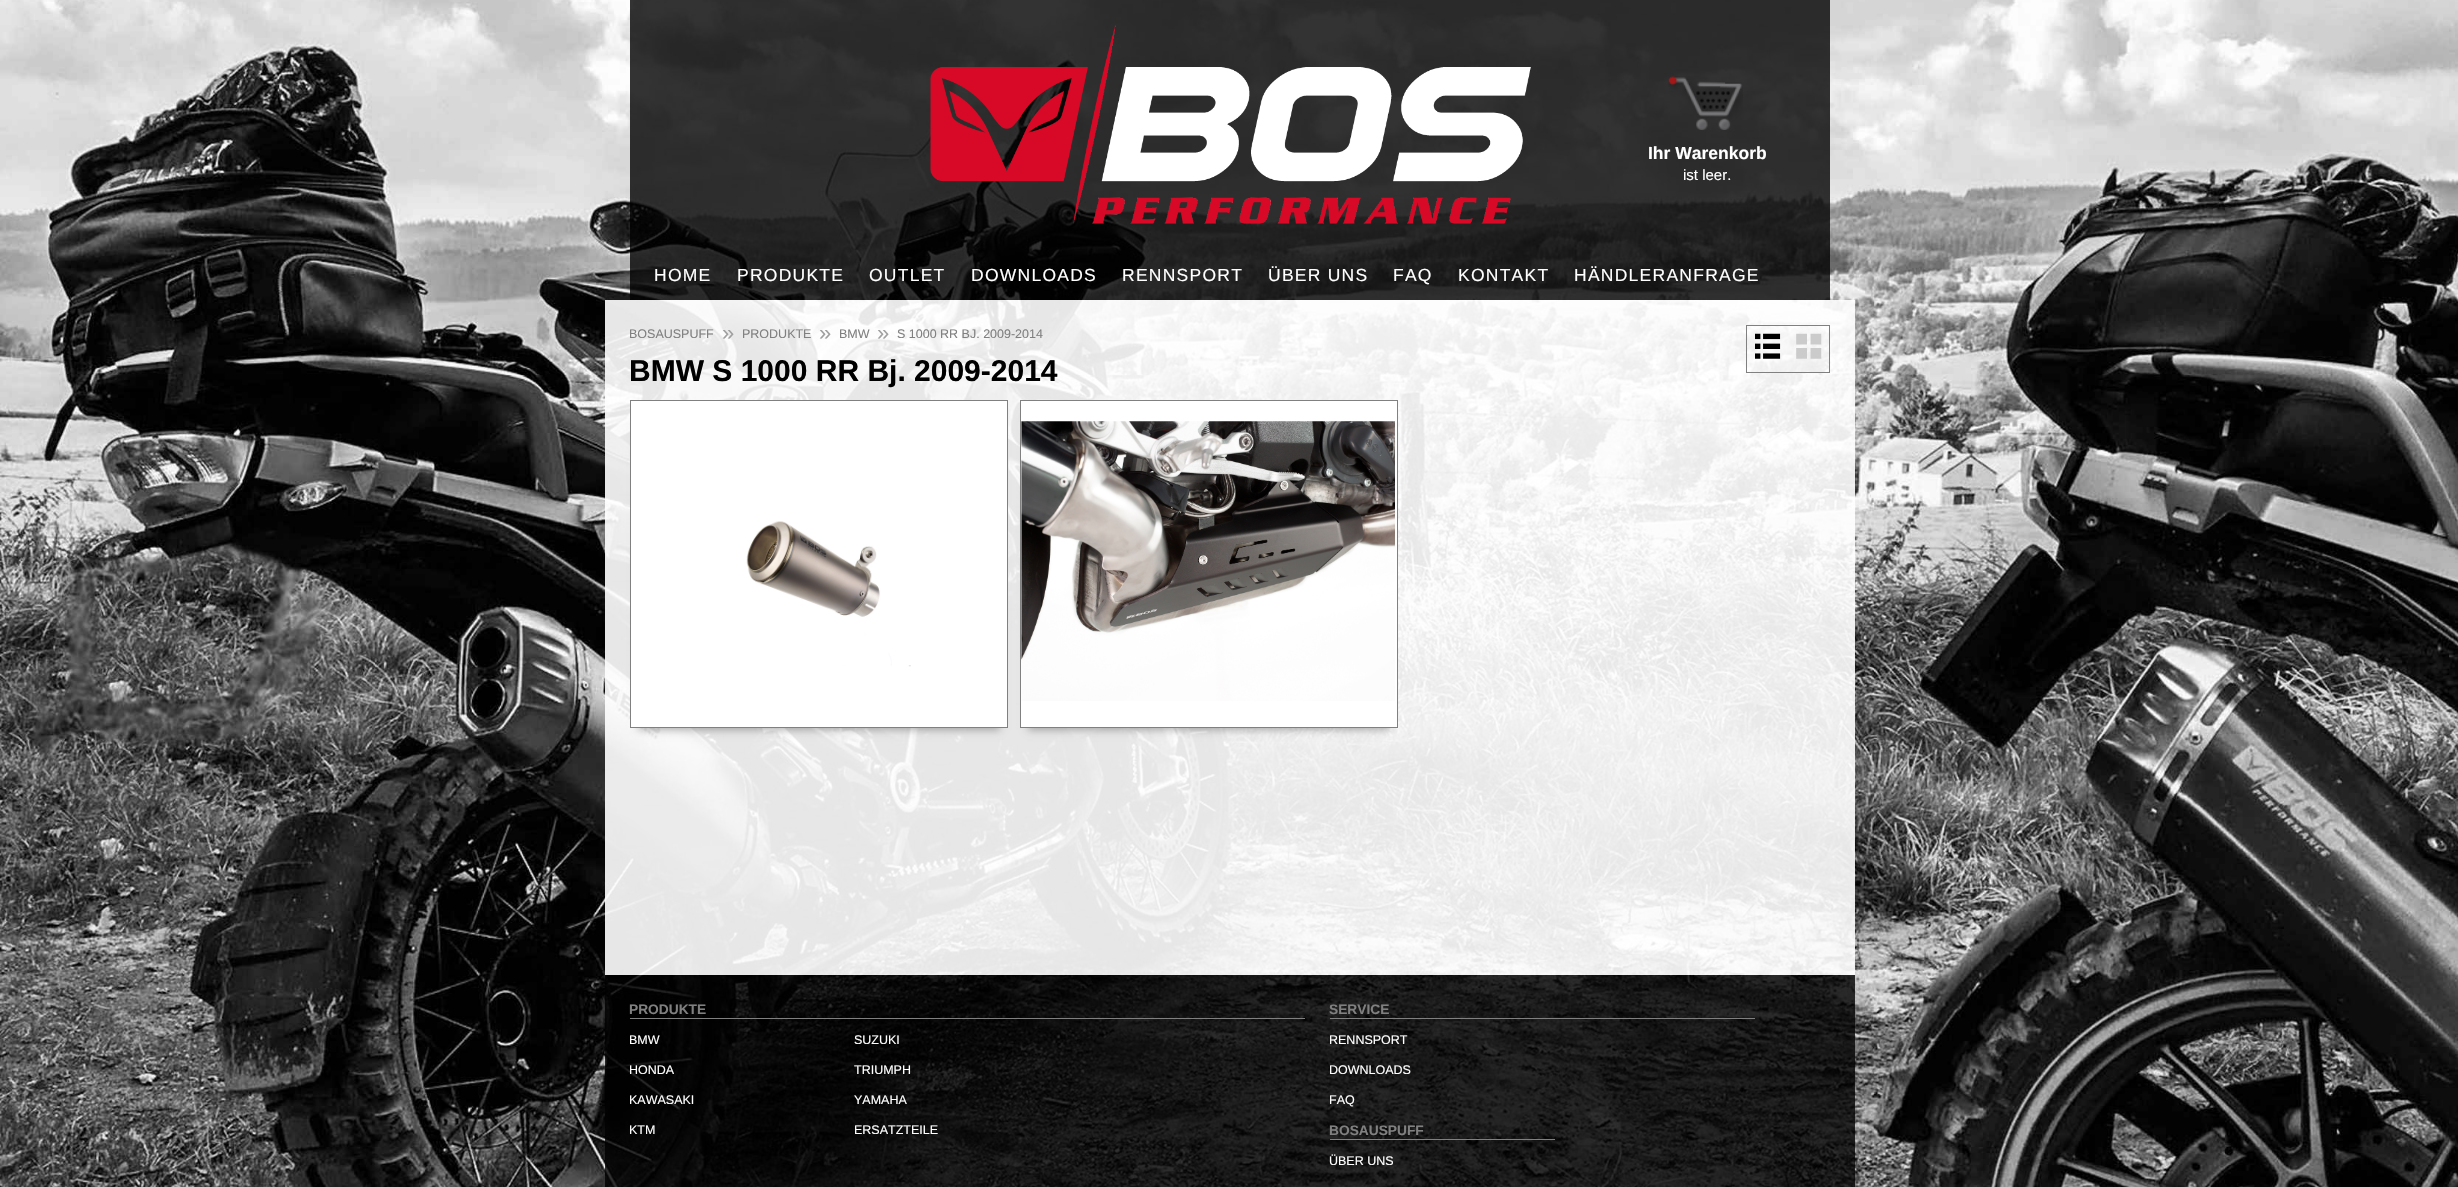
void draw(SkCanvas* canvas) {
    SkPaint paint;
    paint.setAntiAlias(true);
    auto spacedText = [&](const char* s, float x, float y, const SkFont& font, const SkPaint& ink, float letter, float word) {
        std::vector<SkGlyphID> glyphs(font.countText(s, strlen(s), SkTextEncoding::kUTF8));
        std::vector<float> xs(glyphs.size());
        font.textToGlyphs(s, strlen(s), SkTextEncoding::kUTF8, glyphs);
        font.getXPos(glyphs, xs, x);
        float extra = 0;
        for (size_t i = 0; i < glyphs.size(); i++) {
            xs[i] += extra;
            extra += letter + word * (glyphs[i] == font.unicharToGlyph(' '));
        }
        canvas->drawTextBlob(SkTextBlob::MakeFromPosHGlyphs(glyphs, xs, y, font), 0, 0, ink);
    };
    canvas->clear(0xFFFFFFFF);
    canvas->drawImageRect(SkImages::DeferredFromEncodedData(SkData::MakeFromFileName("img1.png")), SkRect::MakeXYWH(0, 0, 2458, 1187), SkSamplingOptions());
    paint.setColor(0xCC000000);
    canvas->drawRect(SkRect::MakeXYWH(630, 0, 1200, 300), paint);
    canvas->drawImageRect(SkImages::DeferredFromEncodedData(SkData::MakeFromFileName("img2.png")), SkRect::MakeXYWH(930, 25, 601, 199), SkSamplingOptions());
    canvas->drawImageRect(SkImages::DeferredFromEncodedData(SkData::MakeFromFileName("img3.png")), SkRect::MakeXYWH(1668, 76, 75, 54), SkSamplingOptions());
    SkFont font1(fontMgr->matchFamilyStyle("Liberation Sans", SkFontStyle::Bold()), 17.5f);
    font1.setSubpixel(true);
    paint.setColor(0xFFFFFFFF);
    canvas->drawString("Ihr Warenkorb", 1648, 159, font1, paint);
    SkFont font2(fontMgr->matchFamilyStyle("Liberation Sans", SkFontStyle::Normal()), 15);
    font2.setSubpixel(true);
    canvas->drawString("ist leer.", 1683, 180, font2, paint);
    SkFont font3(fontMgr->matchFamilyStyle("Liberation Sans", SkFontStyle::Normal()), 17.5f);
    font3.setSubpixel(true);
    spacedText("HOME", 654, 281, font3, paint, 1.25f, 0);
    spacedText("PRODUKTE", 737, 281, font3, paint, 1.25f, 0);
    spacedText("OUTLET", 869, 281, font3, paint, 1.25f, 0);
    spacedText("DOWNLOADS", 971, 281, font3, paint, 1.25f, 0);
    spacedText("RENNSPORT", 1122, 281, font3, paint, 1.25f, 0);
    spacedText("ÜBER UNS", 1268, 281, font3, paint, 1.25f, 0);
    spacedText("FAQ", 1393, 281, font3, paint, 1.25f, 0);
    spacedText("KONTAKT", 1458, 281, font3, paint, 1.25f, 0);
    spacedText("HÄNDLERANFRAGE", 1574, 281, font3, paint, 1.25f, 0);
    paint.setColor(0xE6FFFFFF);
    canvas->drawRect(SkRect::MakeXYWH(605, 300, 1250, 675), paint);
    SkFont font4(fontMgr->matchFamilyStyle("Liberation Sans", SkFontStyle::Normal()), 12.5f);
    font4.setSubpixel(true);
    paint.setColor(0xFF808080);
    canvas->drawString("BOSAUSPUFF", 629, 338, font4, paint);
    SkFont font5(fontMgr->matchFamilyStyle("Liberation Sans", SkFontStyle::Normal()), 22);
    font5.setSubpixel(true);
    paint.setColor(0xFFA0A0A0);
    canvas->drawString("»", 722, 340, font5, paint);
    paint.setColor(0xFF808080);
    canvas->drawString("PRODUKTE", 742, 338, font4, paint);
    paint.setColor(0xFFA0A0A0);
    canvas->drawString("»", 819, 340, font5, paint);
    paint.setColor(0xFF808080);
    canvas->drawString("BMW", 839, 338, font4, paint);
    paint.setColor(0xFFA0A0A0);
    canvas->drawString("»", 877, 340, font5, paint);
    paint.setColor(0xFF808080);
    canvas->drawString("S 1000 RR BJ. 2009-2014", 897, 338, font4, paint);
    paint.setStyle(SkPaint::kStroke_Style);
    paint.setStrokeWidth(1);
    canvas->drawRect(SkRect::MakeXYWH(1746.5f, 325.5f, 83, 47), paint);
    canvas->drawImageRect(SkImages::DeferredFromEncodedData(SkData::MakeFromFileName("img4.png")), SkRect::MakeXYWH(1755, 333, 67, 26), SkSamplingOptions());
    SkFont font6(fontMgr->matchFamilyStyle("Liberation Sans", SkFontStyle::Bold()), 30);
    font6.setSubpixel(true);
    paint.setStyle(SkPaint::kFill_Style);
    paint.setColor(0xFF000000);
    canvas->drawString("BMW S 1000 RR Bj. 2009-2014", 629, 381, font6, paint);
    paint.setColor(0x4D000000);
    paint.setMaskFilter(SkMaskFilter::MakeBlur(kNormal_SkBlurStyle, 4));
    canvas->drawRect(SkRect::MakeXYWH(638, 418, 362, 312), paint);
    paint.setMaskFilter(nullptr);
    paint.setColor(0xFFFFFFFF);
    canvas->drawRect(SkRect::MakeXYWH(630.5f, 400.5f, 377, 327), paint);
    paint.setStyle(SkPaint::kStroke_Style);
    paint.setColor(0xFF808080);
    canvas->drawRect(SkRect::MakeXYWH(630.5f, 400.5f, 377, 327), paint);
    canvas->drawImageRect(SkImages::DeferredFromEncodedData(SkData::MakeFromFileName("img5.png")), SkRect::MakeXYWH(746, 521, 165, 146), SkSamplingOptions());
    paint.setStyle(SkPaint::kFill_Style);
    paint.setColor(0x4D000000);
    paint.setMaskFilter(SkMaskFilter::MakeBlur(kNormal_SkBlurStyle, 4));
    canvas->drawRect(SkRect::MakeXYWH(1028, 418, 362, 312), paint);
    paint.setMaskFilter(nullptr);
    paint.setColor(0xFFFFFFFF);
    canvas->drawRect(SkRect::MakeXYWH(1020.5f, 400.5f, 377, 327), paint);
    paint.setStyle(SkPaint::kStroke_Style);
    paint.setColor(0xFF808080);
    canvas->drawRect(SkRect::MakeXYWH(1020.5f, 400.5f, 377, 327), paint);
    canvas->drawImageRect(SkImages::DeferredFromEncodedData(SkData::MakeFromFileName("img6.png")), SkRect::MakeXYWH(1021, 421, 374, 280), SkSamplingOptions());
    paint.setStyle(SkPaint::kFill_Style);
    paint.setColor(0xCC000000);
    canvas->drawRect(SkRect::MakeXYWH(605, 975, 1250, 212), paint);
    paint.setColor(0xFF808080);
    canvas->drawRect(SkRect::MakeXYWH(630, 1018, 675, 1), paint);
    SkFont font7(fontMgr->matchFamilyStyle("Liberation Sans", SkFontStyle::Bold()), 13.75f);
    font7.setSubpixel(true);
    canvas->drawString("PRODUKTE", 629, 1014, font7, paint);
    paint.setColor(0xFFFFFFFF);
    canvas->drawString("BMW", 629, 1044, font4, paint);
    canvas->drawString("HONDA", 629, 1074, font4, paint);
    canvas->drawString("KAWASAKI", 629, 1104, font4, paint);
    canvas->drawString("KTM", 629, 1134, font4, paint);
    canvas->drawString("SUZUKI", 854, 1044, font4, paint);
    canvas->drawString("TRIUMPH", 854, 1074, font4, paint);
    canvas->drawString("YAMAHA", 854, 1104, font4, paint);
    canvas->drawString("ERSATZTEILE", 854, 1134, font4, paint);
    paint.setColor(0xFF808080);
    canvas->drawRect(SkRect::MakeXYWH(1330, 1018, 425, 1), paint);
    canvas->drawString("SERVICE", 1329, 1014, font7, paint);
    paint.setColor(0xFFFFFFFF);
    canvas->drawString("RENNSPORT", 1329, 1044, font4, paint);
    canvas->drawString("DOWNLOADS", 1329, 1074, font4, paint);
    canvas->drawString("FAQ", 1329, 1104, font4, paint);
    paint.setColor(0xFF808080);
    canvas->drawRect(SkRect::MakeXYWH(1330, 1139, 225, 1), paint);
    canvas->drawString("BOSAUSPUFF", 1329, 1135, font7, paint);
    paint.setColor(0xFFFFFFFF);
    canvas->drawString("ÜBER UNS", 1329, 1165, font4, paint);
}
